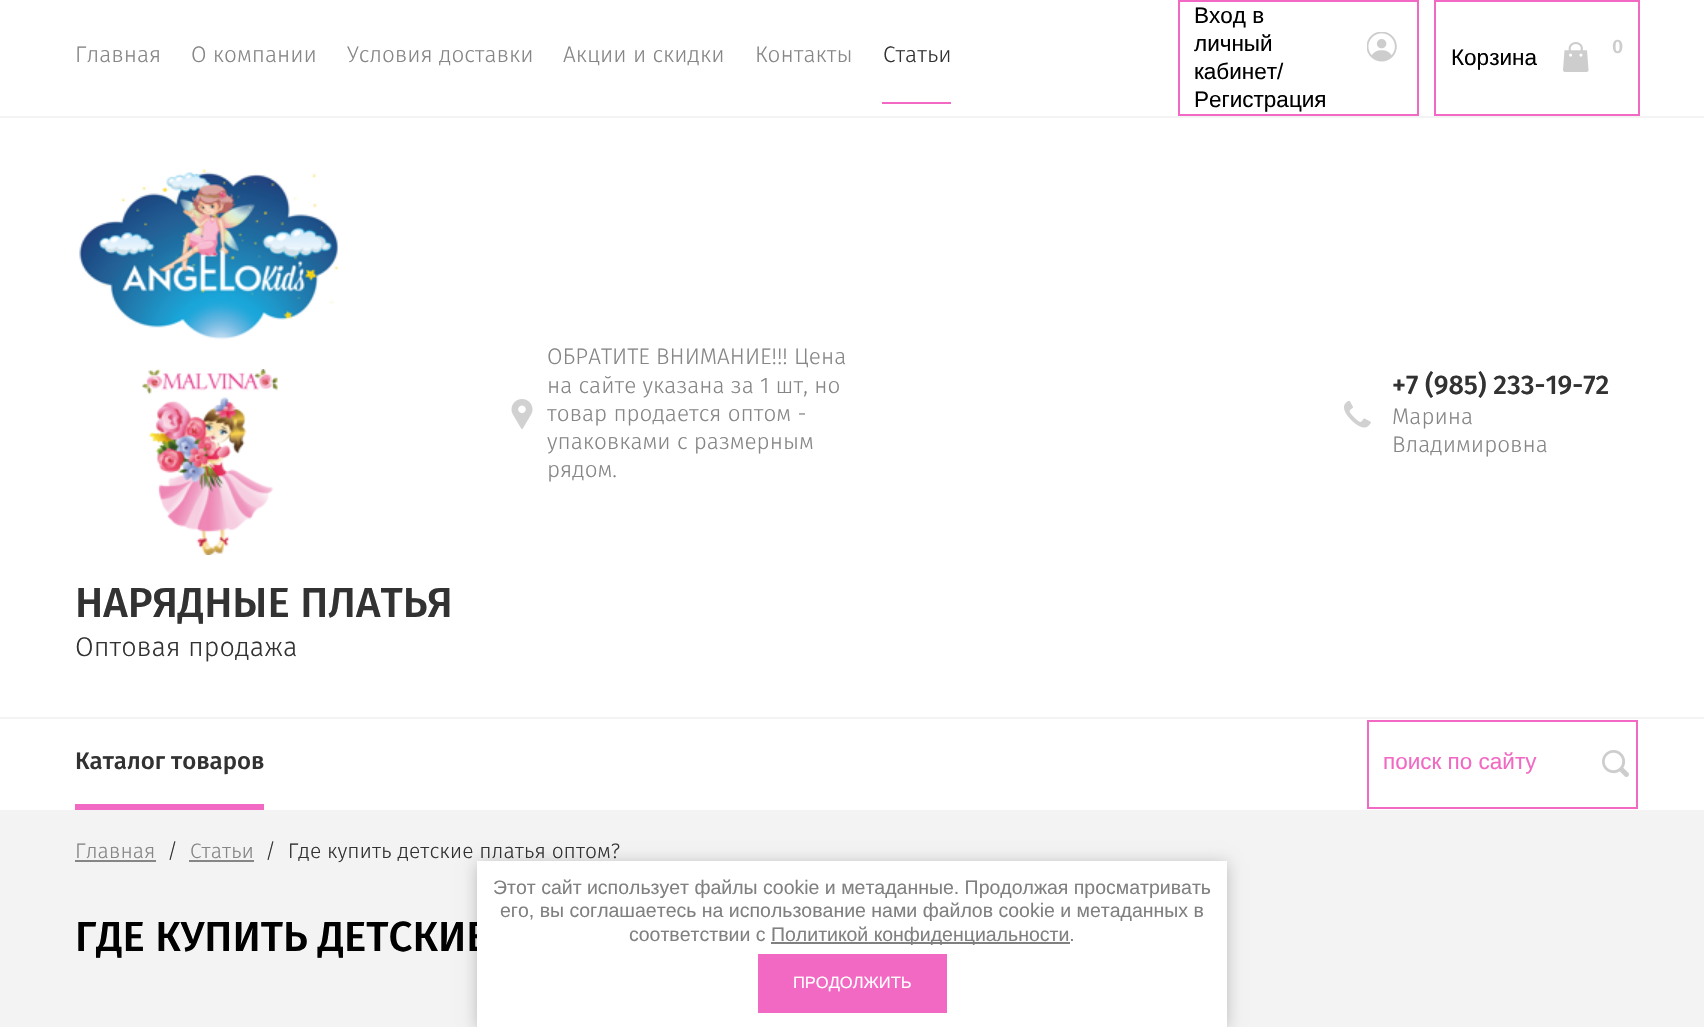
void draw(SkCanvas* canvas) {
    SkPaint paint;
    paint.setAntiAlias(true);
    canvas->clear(0xFFF3F3F3);
    paint.setColor(0xFFFFFFFF);
    canvas->drawRect(SkRect::MakeXYWH(0, 0, 1704, 810), paint);
    SkFont font1(fontMgr->matchFamilyStyle("Fira Sans", SkFontStyle(300, SkFontStyle::kNormal_Width, SkFontStyle::kUpright_Slant)), 22.5f);
    font1.setSubpixel(true);
    paint.setColor(0xFF868686);
    canvas->drawString("Главная", 75, 62, font1, paint);
    canvas->drawString("О компании", 191, 62, font1, paint);
    canvas->drawString("Условия доставки", 347, 62, font1, paint);
    canvas->drawString("Акции и скидки", 563, 62, font1, paint);
    canvas->drawString("Контакты", 755, 62, font1, paint);
    paint.setColor(0xFFF169C3);
    canvas->drawRect(SkRect::MakeXYWH(882, 102, 69, 2), paint);
    paint.setColor(0xFF323232);
    canvas->drawString("Статьи", 883, 62, font1, paint);
    paint.setStyle(SkPaint::kStroke_Style);
    paint.setStrokeWidth(2);
    paint.setColor(0xFFF169C3);
    canvas->drawRect(SkRect::MakeXYWH(1179, 1, 239, 114), paint);
    SkFont font2(fontMgr->matchFamilyStyle("Liberation Sans", SkFontStyle::Normal()), 22.5f);
    font2.setSubpixel(true);
    paint.setStyle(SkPaint::kFill_Style);
    paint.setColor(0xFF000000);
    canvas->drawString("Вход в", 1194, 23, font2, paint);
    canvas->drawString("личный", 1194, 51, font2, paint);
    canvas->drawString("кабинет/", 1194, 79, font2, paint);
    canvas->drawString("Регистрация", 1194, 107, font2, paint);
    canvas->drawImageRect(SkImages::DeferredFromEncodedData(SkData::MakeFromFileName("img1.png")), SkRect::MakeXYWH(1367, 32, 30, 30), SkSamplingOptions());
    paint.setStyle(SkPaint::kStroke_Style);
    paint.setColor(0xFFF169C3);
    canvas->drawRect(SkRect::MakeXYWH(1435, 1, 204, 114), paint);
    canvas->drawImageRect(SkImages::DeferredFromEncodedData(SkData::MakeFromFileName("img2.png")), SkRect::MakeXYWH(1563, 42, 26, 30), SkSamplingOptions());
    SkFont font3(fontMgr->matchFamilyStyle("Fira Sans", SkFontStyle(500, SkFontStyle::kNormal_Width, SkFontStyle::kUpright_Slant)), 19.5f);
    font3.setSubpixel(true);
    paint.setStyle(SkPaint::kFill_Style);
    paint.setColor(0xFFCDCDCD);
    canvas->drawString("0", 1612, 53, font3, paint);
    paint.setColor(0xFF000000);
    canvas->drawString("Корзина", 1451, 65, font2, paint);
    paint.setColor(0xFFF3F3F3);
    canvas->drawRect(SkRect::MakeXYWH(0, 116, 1704, 2), paint);
    canvas->drawImageRect(SkImages::DeferredFromEncodedData(SkData::MakeFromFileName("img3.png")), SkRect::MakeXYWH(511, 399, 22, 30), SkSamplingOptions());
    paint.setColor(0xFF868686);
    canvas->drawString("ОБРАТИТЕ ВНИМАНИЕ!!! Цена", 547, 364, font1, paint);
    canvas->drawString("на сайте указана за 1 шт, но", 547, 393, font1, paint);
    canvas->drawString("товар продается оптом -", 547, 421, font1, paint);
    canvas->drawString("упаковками с размерным", 547, 449, font1, paint);
    canvas->drawString("рядом.", 547, 477, font1, paint);
    canvas->drawImageRect(SkImages::DeferredFromEncodedData(SkData::MakeFromFileName("img4.png")), SkRect::MakeXYWH(1344, 401, 27, 27), SkSamplingOptions());
    SkFont font4(fontMgr->matchFamilyStyle("Fira Sans", SkFontStyle(500, SkFontStyle::kNormal_Width, SkFontStyle::kUpright_Slant)), 27);
    font4.setSubpixel(true);
    paint.setColor(0xFF323232);
    canvas->drawString("+7 (985) 233-19-72", 1392, 394, font4, paint);
    paint.setColor(0xFF868686);
    canvas->drawString("Марина", 1392, 424, font1, paint);
    canvas->drawString("Владимировна", 1392, 452, font1, paint);
    canvas->drawImageRect(SkImages::DeferredFromEncodedData(SkData::MakeFromFileName("img5.png")), SkRect::MakeXYWH(79, 169, 260, 171), SkSamplingOptions());
    canvas->drawImageRect(SkImages::DeferredFromEncodedData(SkData::MakeFromFileName("img6.png")), SkRect::MakeXYWH(142, 369, 136, 186), SkSamplingOptions());
    SkFont font5(fontMgr->matchFamilyStyle("Fira Sans", SkFontStyle(500, SkFontStyle::kNormal_Width, SkFontStyle::kUpright_Slant)), 42);
    font5.setSubpixel(true);
    paint.setColor(0xFF323232);
    canvas->drawString("НАРЯДНЫЕ ПЛАТЬЯ", 75, 617, font5, paint);
    SkFont font6(fontMgr->matchFamilyStyle("Fira Sans", SkFontStyle(300, SkFontStyle::kNormal_Width, SkFontStyle::kUpright_Slant)), 27);
    font6.setSubpixel(true);
    canvas->drawString("Оптовая продажа", 75, 656, font6, paint);
    paint.setColor(0xFFF3F3F3);
    canvas->drawRect(SkRect::MakeXYWH(0, 717, 1704, 2), paint);
    paint.setColor(0xFFF169C3);
    canvas->drawRect(SkRect::MakeXYWH(75, 804, 189, 6), paint);
    SkFont font7(fontMgr->matchFamilyStyle("Fira Sans", SkFontStyle(500, SkFontStyle::kNormal_Width, SkFontStyle::kUpright_Slant)), 24);
    font7.setSubpixel(true);
    paint.setColor(0xFF323232);
    canvas->drawString("Каталог товаров", 75, 769, font7, paint);
    canvas->drawImageRect(SkImages::DeferredFromEncodedData(SkData::MakeFromFileName("img7.png")), SkRect::MakeXYWH(1602, 750, 27, 27), SkSamplingOptions());
    paint.setStyle(SkPaint::kStroke_Style);
    paint.setColor(0xFFF169C3);
    canvas->drawRect(SkRect::MakeXYWH(1368, 721, 269, 87), paint);
    paint.setStyle(SkPaint::kFill_Style);
    canvas->drawString("поиск по сайту", 1383, 769, font2, paint);
    SkFont font8(fontMgr->matchFamilyStyle("Fira Sans", SkFontStyle(300, SkFontStyle::kNormal_Width, SkFontStyle::kUpright_Slant)), 21);
    font8.setSubpixel(true);
    paint.setColor(0xFF868686);
    canvas->drawString("Главная", 75, 858, font8, paint);
    canvas->drawRect(SkRect::MakeXYWH(75, 860, 81, 2), paint);
    paint.setColor(0xFF323232);
    canvas->drawString("/", 167, 858, font8, paint);
    paint.setColor(0xFF868686);
    canvas->drawString("Статьи", 190, 858, font8, paint);
    canvas->drawRect(SkRect::MakeXYWH(189, 860, 65, 2), paint);
    paint.setColor(0xFF323232);
    canvas->drawString("/  Где купить детские платья оптом?", 265, 858, font8, paint);
    paint.setColor(0xFF000000);
    canvas->drawString("ГДЕ КУПИТЬ ДЕТСКИЕ", 75, 951, font5, paint);
    paint.setColor(0x3B000000);
    paint.setMaskFilter(SkMaskFilter::MakeBlur(kNormal_SkBlurStyle, 7.5f));
    canvas->drawRect(SkRect::MakeXYWH(477, 863, 750, 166), paint);
    paint.setMaskFilter(nullptr);
    paint.setColor(0xFFFFFFFF);
    canvas->drawRect(SkRect::MakeXYWH(477, 861, 750, 166), paint);
    SkFont font9(fontMgr->matchFamilyStyle("Liberation Sans", SkFontStyle::Normal()), 19.5f);
    font9.setSubpixel(true);
    paint.setColor(0xFF808080);
    canvas->drawString("Этот сайт использует файлы cookie и метаданные. Продолжая просматривать", 493, 894, font9, paint);
    canvas->drawString("его, вы соглашаетесь на использование нами файлов cookie и метаданных в", 500, 917, font9, paint);
    canvas->drawString("соответствии с", 629, 941, font9, paint);
    canvas->drawRect(SkRect::MakeXYWH(771, 942, 299, 2), paint);
    canvas->drawString("Политикой конфиденциальности.", 771, 941, font9, paint);
    paint.setColor(0xFFF169C3);
    canvas->drawRect(SkRect::MakeXYWH(758, 954, 189, 59), paint);
    SkFont font10(fontMgr->matchFamilyStyle("Liberation Sans", SkFontStyle::Normal()), 16.5f);
    font10.setSubpixel(true);
    paint.setColor(0xFFFFFFFF);
    canvas->drawString("ПРОДОЛЖИТЬ", 793, 988, font10, paint);
}
